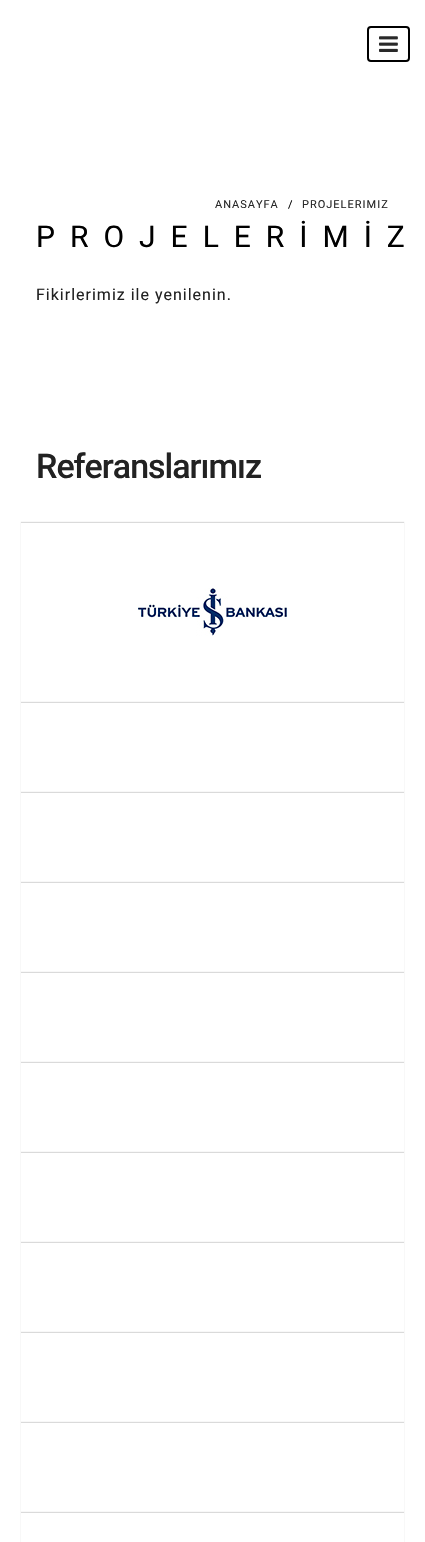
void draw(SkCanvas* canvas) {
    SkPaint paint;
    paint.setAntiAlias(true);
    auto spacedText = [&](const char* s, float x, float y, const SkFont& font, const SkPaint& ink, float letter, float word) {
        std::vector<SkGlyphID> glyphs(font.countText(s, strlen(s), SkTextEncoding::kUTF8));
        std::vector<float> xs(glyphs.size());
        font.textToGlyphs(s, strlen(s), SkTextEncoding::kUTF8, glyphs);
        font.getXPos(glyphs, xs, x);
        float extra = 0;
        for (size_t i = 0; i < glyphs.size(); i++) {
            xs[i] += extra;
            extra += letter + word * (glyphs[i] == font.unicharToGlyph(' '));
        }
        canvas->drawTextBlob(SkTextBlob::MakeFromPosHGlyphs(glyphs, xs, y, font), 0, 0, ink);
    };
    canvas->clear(0xFFFFFFFF);
    paint.setStyle(SkPaint::kStroke_Style);
    paint.setStrokeWidth(2);
    paint.setColor(0xFF000000);
    canvas->drawRoundRect(SkRect::MakeXYWH(368, 27, 41, 34), 3, 3, paint);
    canvas->drawImageRect(SkImages::DeferredFromEncodedData(SkData::MakeFromFileName("img1.png")), SkRect::MakeXYWH(379, 36, 19, 16), SkSamplingOptions());
    SkFont font1(fontMgr->matchFamilyStyle("Roboto", SkFontStyle::Normal()), 11);
    font1.setSubpixel(true);
    paint.setStyle(SkPaint::kFill_Style);
    paint.setColor(0xFF292929);
    spacedText("ANASAYFA", 215, 208, font1, paint, 1, 0);
    paint.setColor(0xFF000000);
    spacedText("/", 288, 208, font1, paint, 1, 0);
    paint.setColor(0xFF292929);
    spacedText("PROJELERIMIZ", 302, 208, font1, paint, 1, 0);
    SkFont font2(fontMgr->matchFamilyStyle("Roboto", SkFontStyle::Normal()), 30);
    font2.setSubpixel(true);
    paint.setColor(0xFF000000);
    spacedText("PROJELERİMİZ", 36, 247, font2, paint, 15, 0);
    SkFont font3(fontMgr->matchFamilyStyle("Roboto", SkFontStyle::Normal()), 16);
    font3.setSubpixel(true);
    paint.setColor(0xFF222222);
    spacedText("Fikirlerimiz ile yenilenin.", 36, 300, font3, paint, 1, 0);
    SkFont font4(fontMgr->matchFamilyStyle("Roboto", SkFontStyle(500, SkFontStyle::kNormal_Width, SkFontStyle::kUpright_Slant)), 34);
    font4.setSubpixel(true);
    spacedText("Referanslarımız", 36, 478, font4, paint, -1, 0);
    canvas->save();
    canvas->clipPath(SkPathBuilder(SkPathFillType::kEvenOdd).moveTo(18, 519).lineTo(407, 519).lineTo(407, 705).lineTo(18, 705).close().moveTo(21, 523).lineTo(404, 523).lineTo(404, 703).lineTo(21, 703).close().detach(), true);
    paint.setColor(0xFFDADADA);
    paint.setMaskFilter(SkMaskFilter::MakeBlur(kNormal_SkBlurStyle, 0.5f));
    canvas->drawRect(SkRect::MakeXYWH(21, 522, 383, 180), paint);
    paint.setMaskFilter(nullptr);
    canvas->restore();
    canvas->drawImageRect(SkImages::DeferredFromEncodedData(SkData::MakeFromFileName("img2.png")), SkRect::MakeXYWH(138, 588, 149, 48), SkSamplingOptions());
    canvas->save();
    canvas->clipPath(SkPathBuilder(SkPathFillType::kEvenOdd).moveTo(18, 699).lineTo(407, 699).lineTo(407, 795).lineTo(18, 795).close().moveTo(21, 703).lineTo(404, 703).lineTo(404, 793).lineTo(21, 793).close().detach(), true);
    paint.setMaskFilter(SkMaskFilter::MakeBlur(kNormal_SkBlurStyle, 0.5f));
    canvas->drawRect(SkRect::MakeXYWH(21, 702, 383, 90), paint);
    paint.setMaskFilter(nullptr);
    canvas->restore();
    canvas->save();
    canvas->clipPath(SkPathBuilder(SkPathFillType::kEvenOdd).moveTo(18, 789).lineTo(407, 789).lineTo(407, 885).lineTo(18, 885).close().moveTo(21, 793).lineTo(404, 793).lineTo(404, 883).lineTo(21, 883).close().detach(), true);
    paint.setMaskFilter(SkMaskFilter::MakeBlur(kNormal_SkBlurStyle, 0.5f));
    canvas->drawRect(SkRect::MakeXYWH(21, 792, 383, 90), paint);
    paint.setMaskFilter(nullptr);
    canvas->restore();
    canvas->save();
    canvas->clipPath(SkPathBuilder(SkPathFillType::kEvenOdd).moveTo(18, 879).lineTo(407, 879).lineTo(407, 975).lineTo(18, 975).close().moveTo(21, 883).lineTo(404, 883).lineTo(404, 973).lineTo(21, 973).close().detach(), true);
    paint.setMaskFilter(SkMaskFilter::MakeBlur(kNormal_SkBlurStyle, 0.5f));
    canvas->drawRect(SkRect::MakeXYWH(21, 882, 383, 90), paint);
    paint.setMaskFilter(nullptr);
    canvas->restore();
    canvas->save();
    canvas->clipPath(SkPathBuilder(SkPathFillType::kEvenOdd).moveTo(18, 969).lineTo(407, 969).lineTo(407, 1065).lineTo(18, 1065).close().moveTo(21, 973).lineTo(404, 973).lineTo(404, 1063).lineTo(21, 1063).close().detach(), true);
    paint.setMaskFilter(SkMaskFilter::MakeBlur(kNormal_SkBlurStyle, 0.5f));
    canvas->drawRect(SkRect::MakeXYWH(21, 972, 383, 90), paint);
    paint.setMaskFilter(nullptr);
    canvas->restore();
    canvas->save();
    canvas->clipPath(SkPathBuilder(SkPathFillType::kEvenOdd).moveTo(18, 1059).lineTo(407, 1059).lineTo(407, 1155).lineTo(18, 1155).close().moveTo(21, 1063).lineTo(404, 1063).lineTo(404, 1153).lineTo(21, 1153).close().detach(), true);
    paint.setMaskFilter(SkMaskFilter::MakeBlur(kNormal_SkBlurStyle, 0.5f));
    canvas->drawRect(SkRect::MakeXYWH(21, 1062, 383, 90), paint);
    paint.setMaskFilter(nullptr);
    canvas->restore();
    canvas->save();
    canvas->clipPath(SkPathBuilder(SkPathFillType::kEvenOdd).moveTo(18, 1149).lineTo(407, 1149).lineTo(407, 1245).lineTo(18, 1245).close().moveTo(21, 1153).lineTo(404, 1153).lineTo(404, 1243).lineTo(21, 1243).close().detach(), true);
    paint.setMaskFilter(SkMaskFilter::MakeBlur(kNormal_SkBlurStyle, 0.5f));
    canvas->drawRect(SkRect::MakeXYWH(21, 1152, 383, 90), paint);
    paint.setMaskFilter(nullptr);
    canvas->restore();
    canvas->save();
    canvas->clipPath(SkPathBuilder(SkPathFillType::kEvenOdd).moveTo(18, 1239).lineTo(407, 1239).lineTo(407, 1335).lineTo(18, 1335).close().moveTo(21, 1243).lineTo(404, 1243).lineTo(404, 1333).lineTo(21, 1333).close().detach(), true);
    paint.setMaskFilter(SkMaskFilter::MakeBlur(kNormal_SkBlurStyle, 0.5f));
    canvas->drawRect(SkRect::MakeXYWH(21, 1242, 383, 90), paint);
    paint.setMaskFilter(nullptr);
    canvas->restore();
    canvas->save();
    canvas->clipPath(SkPathBuilder(SkPathFillType::kEvenOdd).moveTo(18, 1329).lineTo(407, 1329).lineTo(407, 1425).lineTo(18, 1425).close().moveTo(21, 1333).lineTo(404, 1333).lineTo(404, 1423).lineTo(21, 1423).close().detach(), true);
    paint.setMaskFilter(SkMaskFilter::MakeBlur(kNormal_SkBlurStyle, 0.5f));
    canvas->drawRect(SkRect::MakeXYWH(21, 1332, 383, 90), paint);
    paint.setMaskFilter(nullptr);
    canvas->restore();
    canvas->save();
    canvas->clipPath(SkPathBuilder(SkPathFillType::kEvenOdd).moveTo(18, 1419).lineTo(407, 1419).lineTo(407, 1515).lineTo(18, 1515).close().moveTo(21, 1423).lineTo(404, 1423).lineTo(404, 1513).lineTo(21, 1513).close().detach(), true);
    paint.setMaskFilter(SkMaskFilter::MakeBlur(kNormal_SkBlurStyle, 0.5f));
    canvas->drawRect(SkRect::MakeXYWH(21, 1422, 383, 90), paint);
    paint.setMaskFilter(nullptr);
    canvas->restore();
    canvas->save();
    canvas->clipPath(SkPathBuilder(SkPathFillType::kEvenOdd).moveTo(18, 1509).lineTo(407, 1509).lineTo(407, 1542).lineTo(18, 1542).close().moveTo(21, 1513).lineTo(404, 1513).lineTo(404, 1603).lineTo(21, 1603).close().detach(), true);
    paint.setMaskFilter(SkMaskFilter::MakeBlur(kNormal_SkBlurStyle, 0.5f));
    canvas->drawRect(SkRect::MakeXYWH(21, 1512, 383, 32), paint);
    paint.setMaskFilter(nullptr);
    canvas->restore();
}
